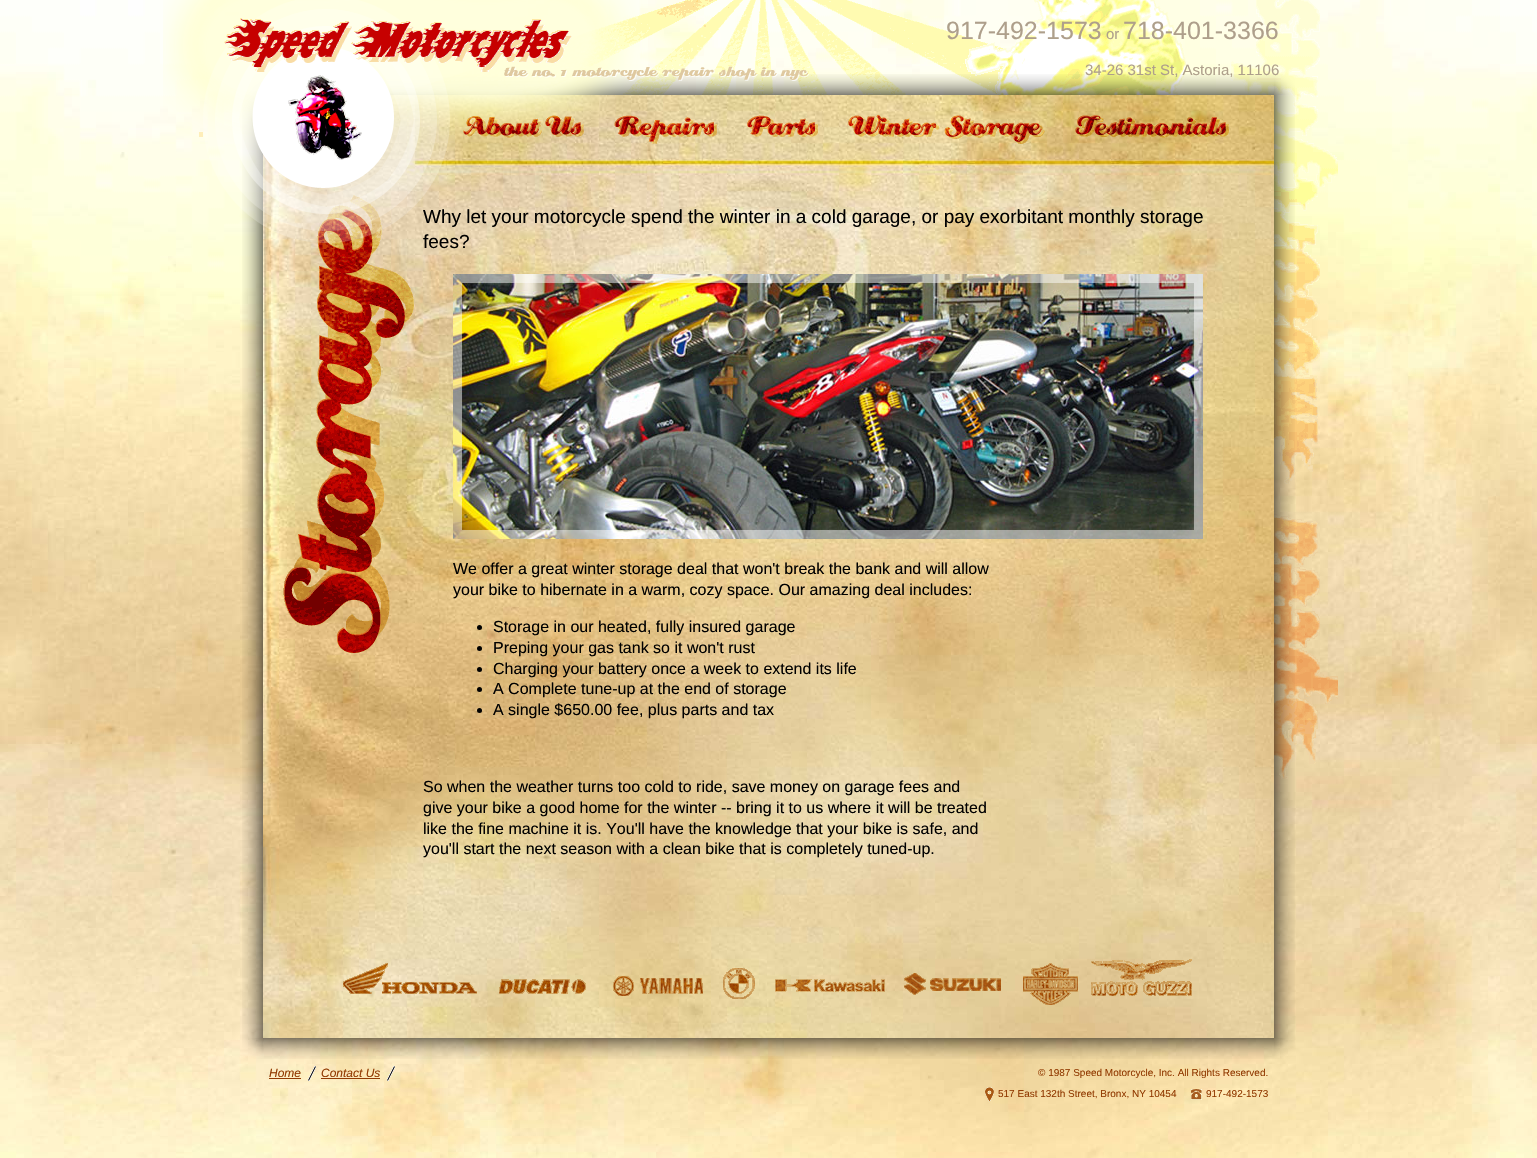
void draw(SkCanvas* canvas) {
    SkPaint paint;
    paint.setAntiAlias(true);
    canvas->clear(0xFFFFFFFF);
    canvas->drawImageRect(SkImages::DeferredFromEncodedData(SkData::MakeFromFileName("img1.png")), SkRect::MakeXYWH(0, 0, 1537, 1158), SkSamplingOptions());
    canvas->drawImageRect(SkImages::DeferredFromEncodedData(SkData::MakeFromFileName("img2.png")), SkRect::MakeXYWH(199, 0, 1139, 779), SkSamplingOptions());
    SkFont font1(fontMgr->matchFamilyStyle("Liberation Sans", SkFontStyle::Normal()), 25);
    font1.setSubpixel(true);
    paint.setColor(0xFFAE9F8B);
    canvas->drawString("917-492-1573", 946, 39, font1, paint);
    SkFont font2(fontMgr->matchFamilyStyle("Liberation Sans", SkFontStyle::Normal()), 15);
    font2.setSubpixel(true);
    canvas->drawString("or", 1106, 39, font2, paint);
    canvas->drawString("718-401-3366", 1123, 39, font1, paint);
    canvas->drawImageRect(SkImages::DeferredFromEncodedData(SkData::MakeFromFileName("img4.png")), SkRect::MakeXYWH(263, 74, 1011, 21), SkSamplingOptions());
    canvas->drawImageRect(SkImages::DeferredFromEncodedData(SkData::MakeFromFileName("img5.png")), SkRect::MakeXYWH(1274, 74, 21, 21), SkSamplingOptions());
    canvas->drawString("34-26 31st St, Astoria, 11106", 1085, 75, font2, paint);
    canvas->drawImageRect(SkImages::DeferredFromEncodedData(SkData::MakeFromFileName("img3.png")), SkRect::MakeXYWH(242, 74, 21, 21), SkSamplingOptions());
    canvas->drawImageRect(SkImages::DeferredFromEncodedData(SkData::MakeFromFileName("img6.png")), SkRect::MakeXYWH(242, 95, 21, 943), SkSamplingOptions());
    canvas->drawImageRect(SkImages::DeferredFromEncodedData(SkData::MakeFromFileName("img7.png")), SkRect::MakeXYWH(263, 95, 1011, 943), SkSamplingOptions());
    canvas->drawImageRect(SkImages::DeferredFromEncodedData(SkData::MakeFromFileName("img8.png")), SkRect::MakeXYWH(283, 195, 131, 458), SkSamplingOptions());
    canvas->drawImageRect(SkImages::DeferredFromEncodedData(SkData::MakeFromFileName("img9.png")), SkRect::MakeXYWH(163, 0, 646, 243), SkSamplingOptions());
    canvas->drawImageRect(SkImages::DeferredFromEncodedData(SkData::MakeFromFileName("img10.png")), SkRect::MakeXYWH(463, 115, 121, 23), SkSamplingOptions());
    canvas->drawImageRect(SkImages::DeferredFromEncodedData(SkData::MakeFromFileName("img11.png")), SkRect::MakeXYWH(614, 115, 103, 29), SkSamplingOptions());
    canvas->drawImageRect(SkImages::DeferredFromEncodedData(SkData::MakeFromFileName("img12.png")), SkRect::MakeXYWH(747, 115, 71, 22), SkSamplingOptions());
    canvas->drawImageRect(SkImages::DeferredFromEncodedData(SkData::MakeFromFileName("img13.png")), SkRect::MakeXYWH(848, 115, 197, 29), SkSamplingOptions());
    canvas->drawImageRect(SkImages::DeferredFromEncodedData(SkData::MakeFromFileName("img14.png")), SkRect::MakeXYWH(1075, 115, 154, 23), SkSamplingOptions());
    SkFont font3(fontMgr->matchFamilyStyle("Liberation Sans", SkFontStyle::Normal()), 19);
    font3.setSubpixel(true);
    paint.setColor(0xFF000000);
    canvas->drawString("Why let your motorcycle spend the winter in a cold garage, or pay exorbitant monthly storage", 423, 223, font3, paint);
    canvas->drawString("fees?", 423, 248, font3, paint);
    canvas->drawImageRect(SkImages::DeferredFromEncodedData(SkData::MakeFromFileName("img15.png")), SkRect::MakeXYWH(453, 274, 750, 265), SkSamplingOptions());
    canvas->drawImageRect(SkImages::DeferredFromEncodedData(SkData::MakeFromFileName("img16.png")), SkRect::MakeXYWH(453, 274, 750, 265), SkSamplingOptions());
    SkFont font4(fontMgr->matchFamilyStyle("Liberation Sans", SkFontStyle::Normal()), 16);
    font4.setSubpixel(true);
    canvas->drawString("We offer a great winter storage deal that won't break the bank and will allow", 453, 574, font4, paint);
    canvas->drawString("your bike to hibernate in a warm, cozy space. Our amazing deal includes:", 453, 595, font4, paint);
    canvas->drawCircle(479.5f, 627.5f, 2.5f, paint);
    canvas->drawString("Storage in our heated, fully insured garage", 493, 632, font4, paint);
    canvas->drawCircle(479.5f, 648.5f, 2.5f, paint);
    canvas->drawString("Preping your gas tank so it won't rust", 493, 653, font4, paint);
    canvas->drawCircle(479.5f, 669.5f, 2.5f, paint);
    canvas->drawString("Charging your battery once a week to extend its life", 493, 674, font4, paint);
    canvas->drawCircle(479.5f, 689.5f, 2.5f, paint);
    canvas->drawString("A Complete tune-up at the end of storage", 493, 694, font4, paint);
    canvas->drawCircle(479.5f, 710.5f, 2.5f, paint);
    canvas->drawString("A single $650.00 fee, plus parts and tax", 493, 715, font4, paint);
    canvas->drawString("So when the weather turns too cold to ride, save money on garage fees and", 423, 792, font4, paint);
    canvas->drawString("give your bike a good home for the winter -- bring it to us where it will be treated", 423, 813, font4, paint);
    canvas->drawString("like the fine machine it is. You'll have the knowledge that your bike is safe, and", 423, 834, font4, paint);
    canvas->drawString("you'll start the next season with a clean bike that is completely tuned-up.", 423, 854, font4, paint);
    canvas->drawImageRect(SkImages::DeferredFromEncodedData(SkData::MakeFromFileName("img17.png")), SkRect::MakeXYWH(343, 959, 849, 46), SkSamplingOptions());
    canvas->drawImageRect(SkImages::DeferredFromEncodedData(SkData::MakeFromFileName("img18.png")), SkRect::MakeXYWH(1274, 95, 21, 943), SkSamplingOptions());
    canvas->drawImageRect(SkImages::DeferredFromEncodedData(SkData::MakeFromFileName("img19.png")), SkRect::MakeXYWH(242, 1038, 21, 21), SkSamplingOptions());
    canvas->drawImageRect(SkImages::DeferredFromEncodedData(SkData::MakeFromFileName("img20.png")), SkRect::MakeXYWH(263, 1038, 1011, 21), SkSamplingOptions());
    canvas->drawImageRect(SkImages::DeferredFromEncodedData(SkData::MakeFromFileName("img21.png")), SkRect::MakeXYWH(1274, 1038, 21, 21), SkSamplingOptions());
    canvas->drawImageRect(SkImages::DeferredFromEncodedData(SkData::MakeFromFileName("img22.png")), SkRect::MakeXYWH(308, 1066, 8, 15), SkSamplingOptions());
    SkFont font5(fontMgr->matchFamilyStyle("Liberation Sans", SkFontStyle::Italic()), 12);
    font5.setSubpixel(true);
    paint.setColor(0xFF923B02);
    canvas->drawString("Home", 269, 1077, font5, paint);
    canvas->drawRect(SkRect::MakeXYWH(269, 1078, 32, 1), paint);
    canvas->drawImageRect(SkImages::DeferredFromEncodedData(SkData::MakeFromFileName("img23.png")), SkRect::MakeXYWH(387, 1066, 8, 15), SkSamplingOptions());
    canvas->drawString("Contact Us", 321, 1077, font5, paint);
    canvas->drawRect(SkRect::MakeXYWH(321, 1078, 59, 1), paint);
    SkFont font6(fontMgr->matchFamilyStyle("Liberation Sans", SkFontStyle::Normal()), 10);
    font6.setSubpixel(true);
    canvas->drawString("© 1987 Speed Motorcycle, Inc. All Rights Reserved.", 1038, 1076, font6, paint);
    canvas->drawImageRect(SkImages::DeferredFromEncodedData(SkData::MakeFromFileName("img24.png")), SkRect::MakeXYWH(985, 1087, 9, 15), SkSamplingOptions());
    canvas->drawString("517 East 132th Street, Bronx, NY 10454", 998, 1097, font6, paint);
    canvas->drawImageRect(SkImages::DeferredFromEncodedData(SkData::MakeFromFileName("img25.png")), SkRect::MakeXYWH(1191, 1089, 11, 11), SkSamplingOptions());
    canvas->drawString("917-492-1573", 1206, 1097, font6, paint);
}
